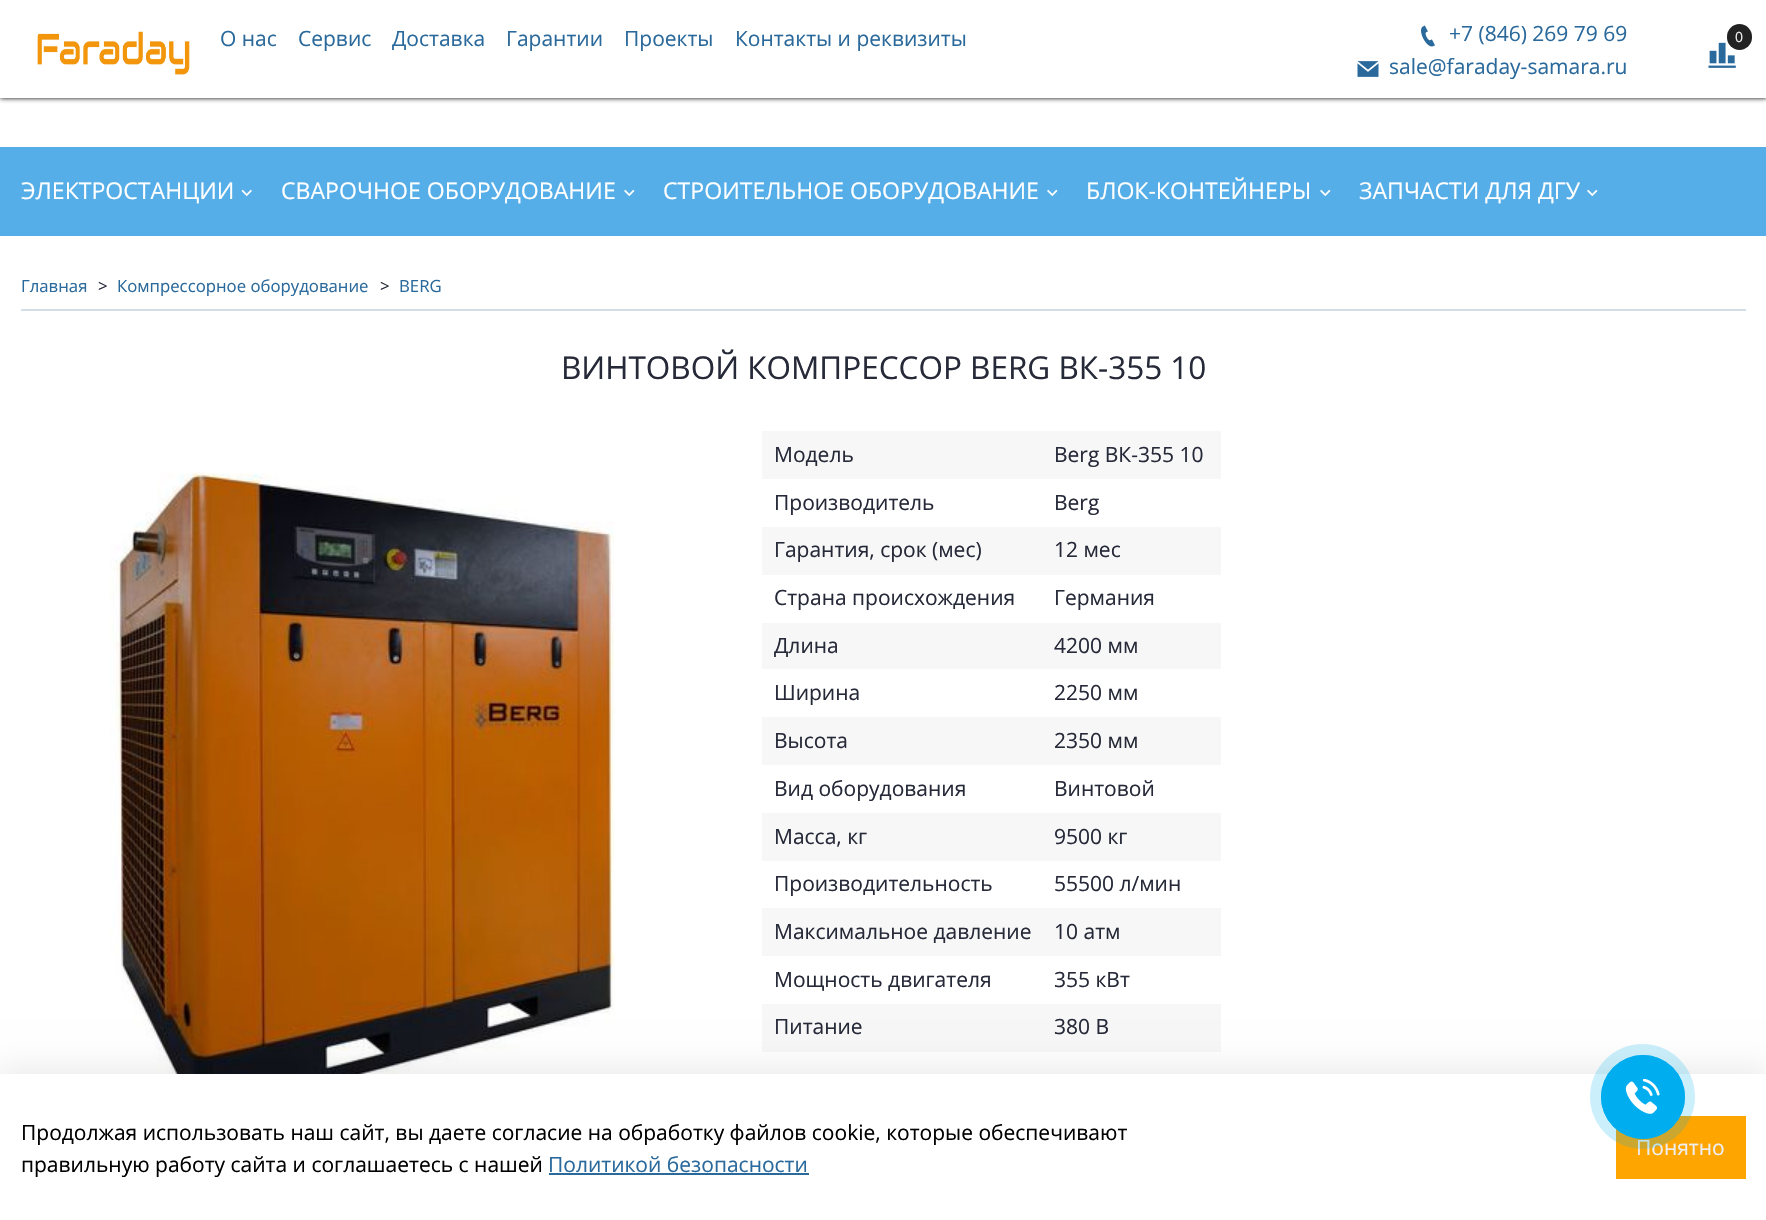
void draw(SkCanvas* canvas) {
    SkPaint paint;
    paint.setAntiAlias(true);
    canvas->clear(0xFFFFFFFF);
    paint.setColor(0xFF000000);
    paint.setMaskFilter(SkMaskFilter::MakeBlur(kNormal_SkBlurStyle, 2.5f));
    canvas->drawRect(SkRect::MakeXYWH(0, 0, 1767, 98), paint);
    paint.setMaskFilter(nullptr);
    paint.setColor(0xFFFFFFFF);
    canvas->drawRect(SkRect::MakeXYWH(0, 0, 1766, 98), paint);
    canvas->drawImageRect(SkImages::DeferredFromEncodedData(SkData::MakeFromFileName("img1.png")), SkRect::MakeXYWH(37, 31, 153, 44), SkSamplingOptions());
    SkFont font1(fontMgr->matchFamilyStyle("Open Sans", SkFontStyle::Normal()), 21);
    font1.setSubpixel(true);
    paint.setColor(0xFF2A699B);
    canvas->drawString("О нас", 220, 46, font1, paint);
    canvas->drawString("Сервис", 298, 46, font1, paint);
    canvas->drawString("Доставка", 392, 46, font1, paint);
    canvas->drawString("Гарантии", 506, 46, font1, paint);
    canvas->drawString("Проекты", 624, 46, font1, paint);
    canvas->drawString("Контакты и реквизиты", 735, 46, font1, paint);
    canvas->drawImageRect(SkImages::DeferredFromEncodedData(SkData::MakeFromFileName("img2.png")), SkRect::MakeXYWH(1421, 25, 14, 22), SkSamplingOptions());
    canvas->drawString("+7 (846) 269 79 69", 1449, 41, font1, paint);
    canvas->drawImageRect(SkImages::DeferredFromEncodedData(SkData::MakeFromFileName("img3.png")), SkRect::MakeXYWH(1357, 61, 22, 16), SkSamplingOptions());
    canvas->drawString("sale@faraday-samara.ru", 1389, 74, font1, paint);
    canvas->drawImageRect(SkImages::DeferredFromEncodedData(SkData::MakeFromFileName("img4.png")), SkRect::MakeXYWH(1708, 42, 28, 26), SkSamplingOptions());
    paint.setColor(0xFF222222);
    canvas->drawRoundRect(SkRect::MakeXYWH(1727, 24, 25, 26), 12.5f, 12.5f, paint);
    SkFont font2(fontMgr->matchFamilyStyle("Open Sans", SkFontStyle::Normal()), 14);
    font2.setSubpixel(true);
    paint.setColor(0xFFEEEEEE);
    canvas->drawString("0", 1735, 42, font2, paint);
    paint.setColor(0xFF56AEE8);
    canvas->drawRect(SkRect::MakeXYWH(0, 147, 1766, 89), paint);
    SkFont font3(fontMgr->matchFamilyStyle("Open Sans", SkFontStyle::Normal()), 23.1f);
    font3.setSubpixel(true);
    paint.setColor(0xFFFFFFFF);
    canvas->drawString("ЭЛЕКТРОСТАНЦИИ", 21, 199, font3, paint);
    canvas->drawImageRect(SkImages::DeferredFromEncodedData(SkData::MakeFromFileName("img5.png")), SkRect::MakeXYWH(241, 189, 11, 8), SkSamplingOptions());
    canvas->drawString("СВАРОЧНОЕ ОБОРУДОВАНИЕ", 281, 199, font3, paint);
    canvas->drawImageRect(SkImages::DeferredFromEncodedData(SkData::MakeFromFileName("img6.png")), SkRect::MakeXYWH(624, 189, 11, 8), SkSamplingOptions());
    canvas->drawString("СТРОИТЕЛЬНОЕ ОБОРУДОВАНИЕ", 663, 199, font3, paint);
    canvas->drawImageRect(SkImages::DeferredFromEncodedData(SkData::MakeFromFileName("img6.png")), SkRect::MakeXYWH(1047, 189, 11, 8), SkSamplingOptions());
    canvas->drawString("БЛОК-КОНТЕЙНЕРЫ", 1086, 199, font3, paint);
    canvas->drawImageRect(SkImages::DeferredFromEncodedData(SkData::MakeFromFileName("img6.png")), SkRect::MakeXYWH(1320, 189, 11, 8), SkSamplingOptions());
    canvas->drawString("ЗАПЧАСТИ ДЛЯ ДГУ", 1359, 199, font3, paint);
    canvas->drawImageRect(SkImages::DeferredFromEncodedData(SkData::MakeFromFileName("img6.png")), SkRect::MakeXYWH(1587, 189, 11, 8), SkSamplingOptions());
    paint.setColor(0xFFD3DEE7);
    canvas->drawRect(SkRect::MakeXYWH(21, 309, 1725, 2), paint);
    SkFont font4(fontMgr->matchFamilyStyle("Open Sans", SkFontStyle::Normal()), 16.75f);
    font4.setSubpixel(true);
    paint.setColor(0xFF2A699B);
    canvas->drawString("Главная", 21, 292, font4, paint);
    paint.setColor(0xFF262938);
    canvas->drawString(">", 98, 292, font4, paint);
    paint.setColor(0xFF2A699B);
    canvas->drawString("Компрессорное оборудование", 117, 292, font4, paint);
    paint.setColor(0xFF262938);
    canvas->drawString(">", 380, 292, font4, paint);
    paint.setColor(0xFF2A699B);
    canvas->drawString("BERG", 399, 292, font4, paint);
    SkFont font5(fontMgr->matchFamilyStyle("Open Sans", SkFontStyle::Normal()), 31.5f);
    font5.setSubpixel(true);
    paint.setColor(0xFF262938);
    canvas->drawString("ВИНТОВОЙ КОМПРЕССОР BERG ВК-355 10", 561, 379, font5, paint);
    canvas->drawImageRect(SkImages::DeferredFromEncodedData(SkData::MakeFromFileName("img7.png")), SkRect::MakeXYWH(110, 472, 505, 602), SkSamplingOptions());
    paint.setColor(0xFFF7F7F7);
    canvas->drawRect(SkRect::MakeXYWH(762, 431, 459, 48), paint);
    paint.setColor(0xFF262938);
    canvas->drawString("Модель", 774, 462, font1, paint);
    canvas->drawString("Berg ВК-355 10", 1054, 462, font1, paint);
    canvas->drawString("Производитель", 774, 510, font1, paint);
    canvas->drawString("Berg", 1054, 510, font1, paint);
    paint.setColor(0xFFF7F7F7);
    canvas->drawRect(SkRect::MakeXYWH(762, 527, 459, 48), paint);
    paint.setColor(0xFF262938);
    canvas->drawString("Гарантия, срок (мес)", 774, 557, font1, paint);
    canvas->drawString("12 мес", 1054, 557, font1, paint);
    canvas->drawString("Страна происхождения", 774, 605, font1, paint);
    canvas->drawString("Германия", 1054, 605, font1, paint);
    paint.setColor(0xFFF7F7F7);
    canvas->drawRect(SkRect::MakeXYWH(762, 623, 459, 46), paint);
    paint.setColor(0xFF262938);
    canvas->drawString("Длина", 774, 653, font1, paint);
    canvas->drawString("4200 мм", 1054, 653, font1, paint);
    canvas->drawString("Ширина", 774, 700, font1, paint);
    canvas->drawString("2250 мм", 1054, 700, font1, paint);
    paint.setColor(0xFFF7F7F7);
    canvas->drawRect(SkRect::MakeXYWH(762, 717, 459, 48), paint);
    paint.setColor(0xFF262938);
    canvas->drawString("Высота", 774, 748, font1, paint);
    canvas->drawString("2350 мм", 1054, 748, font1, paint);
    canvas->drawString("Вид оборудования", 774, 796, font1, paint);
    canvas->drawString("Винтовой", 1054, 796, font1, paint);
    paint.setColor(0xFFF7F7F7);
    canvas->drawRect(SkRect::MakeXYWH(762, 813, 459, 48), paint);
    paint.setColor(0xFF262938);
    canvas->drawString("Масса, кг", 774, 844, font1, paint);
    canvas->drawString("9500 кг", 1054, 844, font1, paint);
    canvas->drawString("Производительность", 774, 891, font1, paint);
    canvas->drawString("55500 л/мин", 1054, 891, font1, paint);
    paint.setColor(0xFFF7F7F7);
    canvas->drawRect(SkRect::MakeXYWH(762, 908, 459, 48), paint);
    paint.setColor(0xFF262938);
    canvas->drawString("Максимальное давление", 774, 939, font1, paint);
    canvas->drawString("10 атм", 1054, 939, font1, paint);
    canvas->drawString("Мощность двигателя", 774, 987, font1, paint);
    canvas->drawString("355 кВт", 1054, 987, font1, paint);
    paint.setColor(0xFFF7F7F7);
    canvas->drawRect(SkRect::MakeXYWH(762, 1004, 459, 48), paint);
    paint.setColor(0xFF262938);
    canvas->drawString("Питание", 774, 1034, font1, paint);
    canvas->drawString("380 В", 1054, 1034, font1, paint);
    paint.setColor(0x17000000);
    paint.setMaskFilter(SkMaskFilter::MakeBlur(kNormal_SkBlurStyle, 17));
    canvas->drawRect(SkRect::MakeXYWH(-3, 1070, 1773, 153), paint);
    paint.setMaskFilter(nullptr);
    paint.setColor(0xFFFFFFFF);
    canvas->drawRect(SkRect::MakeXYWH(0, 1074, 1766, 146), paint);
    paint.setColor(0xFFFFA500);
    canvas->drawRect(SkRect::MakeXYWH(1616, 1116, 130, 63), paint);
    paint.setColor(0xFFEEEEEE);
    canvas->drawString("Понятно", 1636, 1155, font1, paint);
    paint.setColor(0x3300AEEF);
    canvas->drawCircle(1642.5f, 1096.5f, 52.5f, paint);
    paint.setStyle(SkPaint::kStroke_Style);
    paint.setStrokeWidth(1);
    paint.setColor(0xFF00AEEF);
    canvas->drawCircle(1643, 1097, 41.5f, paint);
    paint.setStyle(SkPaint::kFill_Style);
    canvas->drawCircle(1643, 1097, 42, paint);
    canvas->drawImageRect(SkImages::DeferredFromEncodedData(SkData::MakeFromFileName("img8.png")), SkRect::MakeXYWH(1625, 1079, 35, 35), SkSamplingOptions());
    paint.setColor(0xFF000000);
    canvas->drawString("Продолжая использовать наш сайт, вы даете согласие на обработку файлов cookie, которые обеспечивают", 21, 1140, font1, paint);
    canvas->drawString("правильную работу сайта и соглашаетесь с нашей", 21, 1172, font1, paint);
    paint.setColor(0xFF2A699B);
    canvas->drawString("Политикой безопасности", 548, 1172, font1, paint);
    canvas->drawRect(SkRect::MakeXYWH(549, 1173, 260, 2), paint);
}
